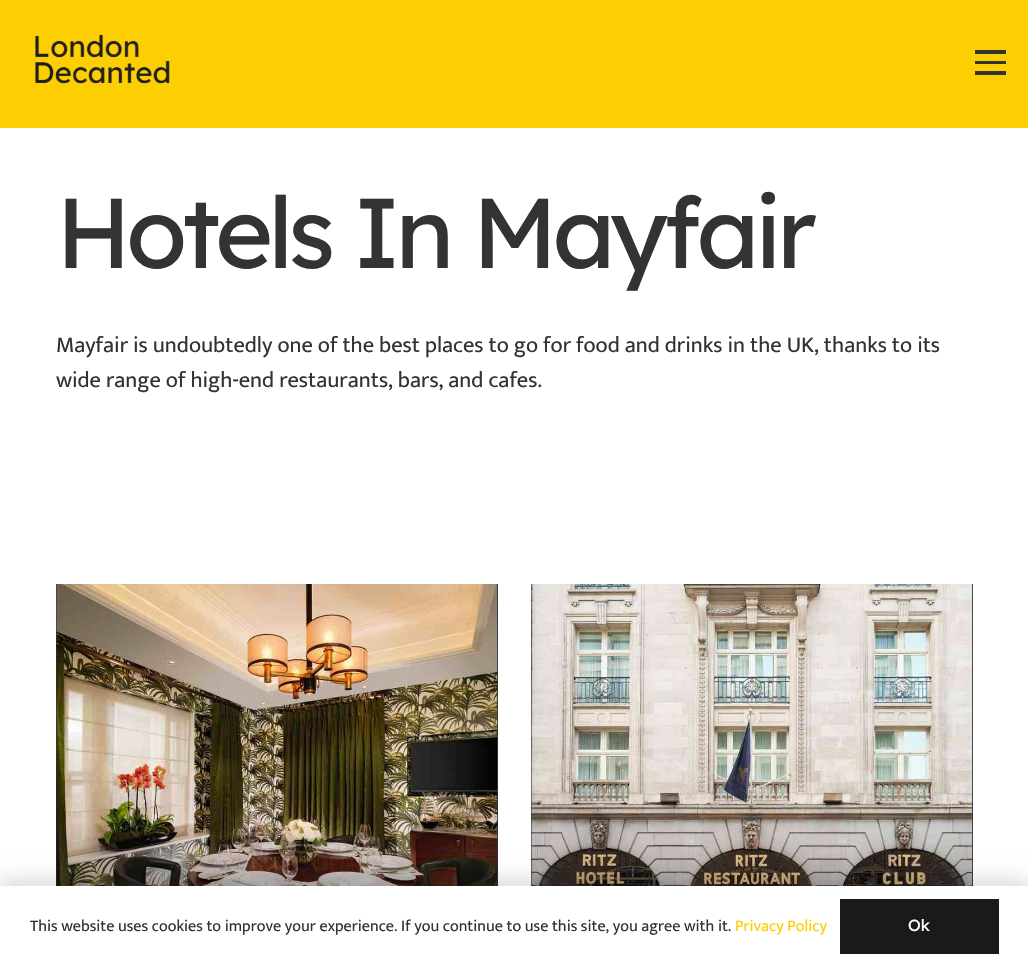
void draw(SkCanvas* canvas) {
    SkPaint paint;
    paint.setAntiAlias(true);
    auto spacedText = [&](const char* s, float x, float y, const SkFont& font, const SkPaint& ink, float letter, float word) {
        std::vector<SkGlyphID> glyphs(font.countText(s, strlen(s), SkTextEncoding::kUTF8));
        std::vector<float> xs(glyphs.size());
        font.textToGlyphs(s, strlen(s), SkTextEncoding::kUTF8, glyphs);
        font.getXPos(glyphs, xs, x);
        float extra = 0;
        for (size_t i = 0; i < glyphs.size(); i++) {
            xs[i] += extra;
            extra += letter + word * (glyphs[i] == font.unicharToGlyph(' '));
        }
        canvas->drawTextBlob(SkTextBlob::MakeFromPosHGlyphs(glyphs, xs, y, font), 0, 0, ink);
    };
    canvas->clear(0xFFFFFFFF);
    paint.setColor(0xFFFDCF02);
    canvas->drawRect(SkRect::MakeXYWH(0, 0, 1028, 128), paint);
    canvas->drawImageRect(SkImages::DeferredFromEncodedData(SkData::MakeFromFileName("img1.png")), SkRect::MakeXYWH(35, 34, 138, 50), SkSamplingOptions());
    paint.setColor(0xFF333333);
    canvas->drawRect(SkRect::MakeXYWH(975, 61, 31, 3), paint);
    canvas->drawRect(SkRect::MakeXYWH(975, 50, 31, 4), paint);
    canvas->drawRect(SkRect::MakeXYWH(975, 71, 31, 4), paint);
    SkFont font1(fontMgr->matchFamilyStyle("Lexend Deca", SkFontStyle::Normal()), 99);
    font1.setSubpixel(true);
    spacedText("Hotels In Mayfair", 56, 268, font1, paint, -5, 0);
    SkFont font2(fontMgr->matchFamilyStyle("Mukta", SkFontStyle::Normal()), 22.5f);
    font2.setSubpixel(true);
    canvas->drawString("Mayfair is undoubtedly one of the best places to go for food and drinks in the UK, thanks to its", 56, 352, font2, paint);
    canvas->drawString("wide range of high-end restaurants, bars, and cafes.", 56, 387, font2, paint);
    canvas->drawRect(SkRect::MakeXYWH(56, 584, 442, 302), paint);
    canvas->drawImageRect(SkImages::DeferredFromEncodedData(SkData::MakeFromFileName("img2.png")), SkRect::MakeXYWH(56, 584, 442, 302), SkSamplingOptions());
    {
        const SkColor colors[] = {0x001E1E1E, 0xCC1E1E1E};
        const float stops[] = {0, 1};
        const SkPoint ends[] = {{277, 819}, {277, 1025}};
        paint.setShader(SkGradientShader::MakeLinear(ends, colors, stops, 2, SkTileMode::kClamp));
        paint.setAlpha(255);
    }
    canvas->drawRect(SkRect::MakeXYWH(56, 825, 442, 61), paint);
    paint.setShader(nullptr);
    paint.setColor(0xFF333333);
    canvas->drawRect(SkRect::MakeXYWH(531, 584, 442, 302), paint);
    canvas->drawImageRect(SkImages::DeferredFromEncodedData(SkData::MakeFromFileName("img3.png")), SkRect::MakeXYWH(531, 584, 442, 302), SkSamplingOptions());
    {
        const SkColor colors[] = {0x001E1E1E, 0xCC1E1E1E};
        const float stops[] = {0, 1};
        const SkPoint ends[] = {{752, 819}, {752, 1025}};
        paint.setShader(SkGradientShader::MakeLinear(ends, colors, stops, 2, SkTileMode::kClamp));
        paint.setAlpha(255);
    }
    canvas->drawRect(SkRect::MakeXYWH(531, 825, 442, 61), paint);
    paint.setShader(nullptr);
    paint.setColor(0x26000000);
    paint.setMaskFilter(SkMaskFilter::MakeBlur(kNormal_SkBlurStyle, 9.5f));
    canvas->drawRect(SkRect::MakeXYWH(0, 880, 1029, 80), paint);
    paint.setMaskFilter(nullptr);
    paint.setColor(0xFFFFFFFF);
    canvas->drawRect(SkRect::MakeXYWH(0, 886, 1028, 80), paint);
    SkFont font3(fontMgr->matchFamilyStyle("Mukta", SkFontStyle::Normal()), 16.25f);
    font3.setSubpixel(true);
    paint.setColor(0xFF333333);
    canvas->drawString("This website uses cookies to improve your experience. If you continue to use this site, you agree with it.", 30, 931, font3, paint);
    paint.setColor(0xFFFDCF02);
    canvas->drawString("Privacy Policy", 735, 931, font3, paint);
    paint.setColor(0xFF1A1A1A);
    canvas->drawRect(SkRect::MakeXYWH(840, 899, 159, 55), paint);
    SkFont font4(fontMgr->matchFamilyStyle("Lexend Deca", SkFontStyle::Normal()), 16.25f);
    font4.setSubpixel(true);
    paint.setColor(0xFFFFFFFF);
    canvas->drawString("Ok", 908, 931, font4, paint);
}
